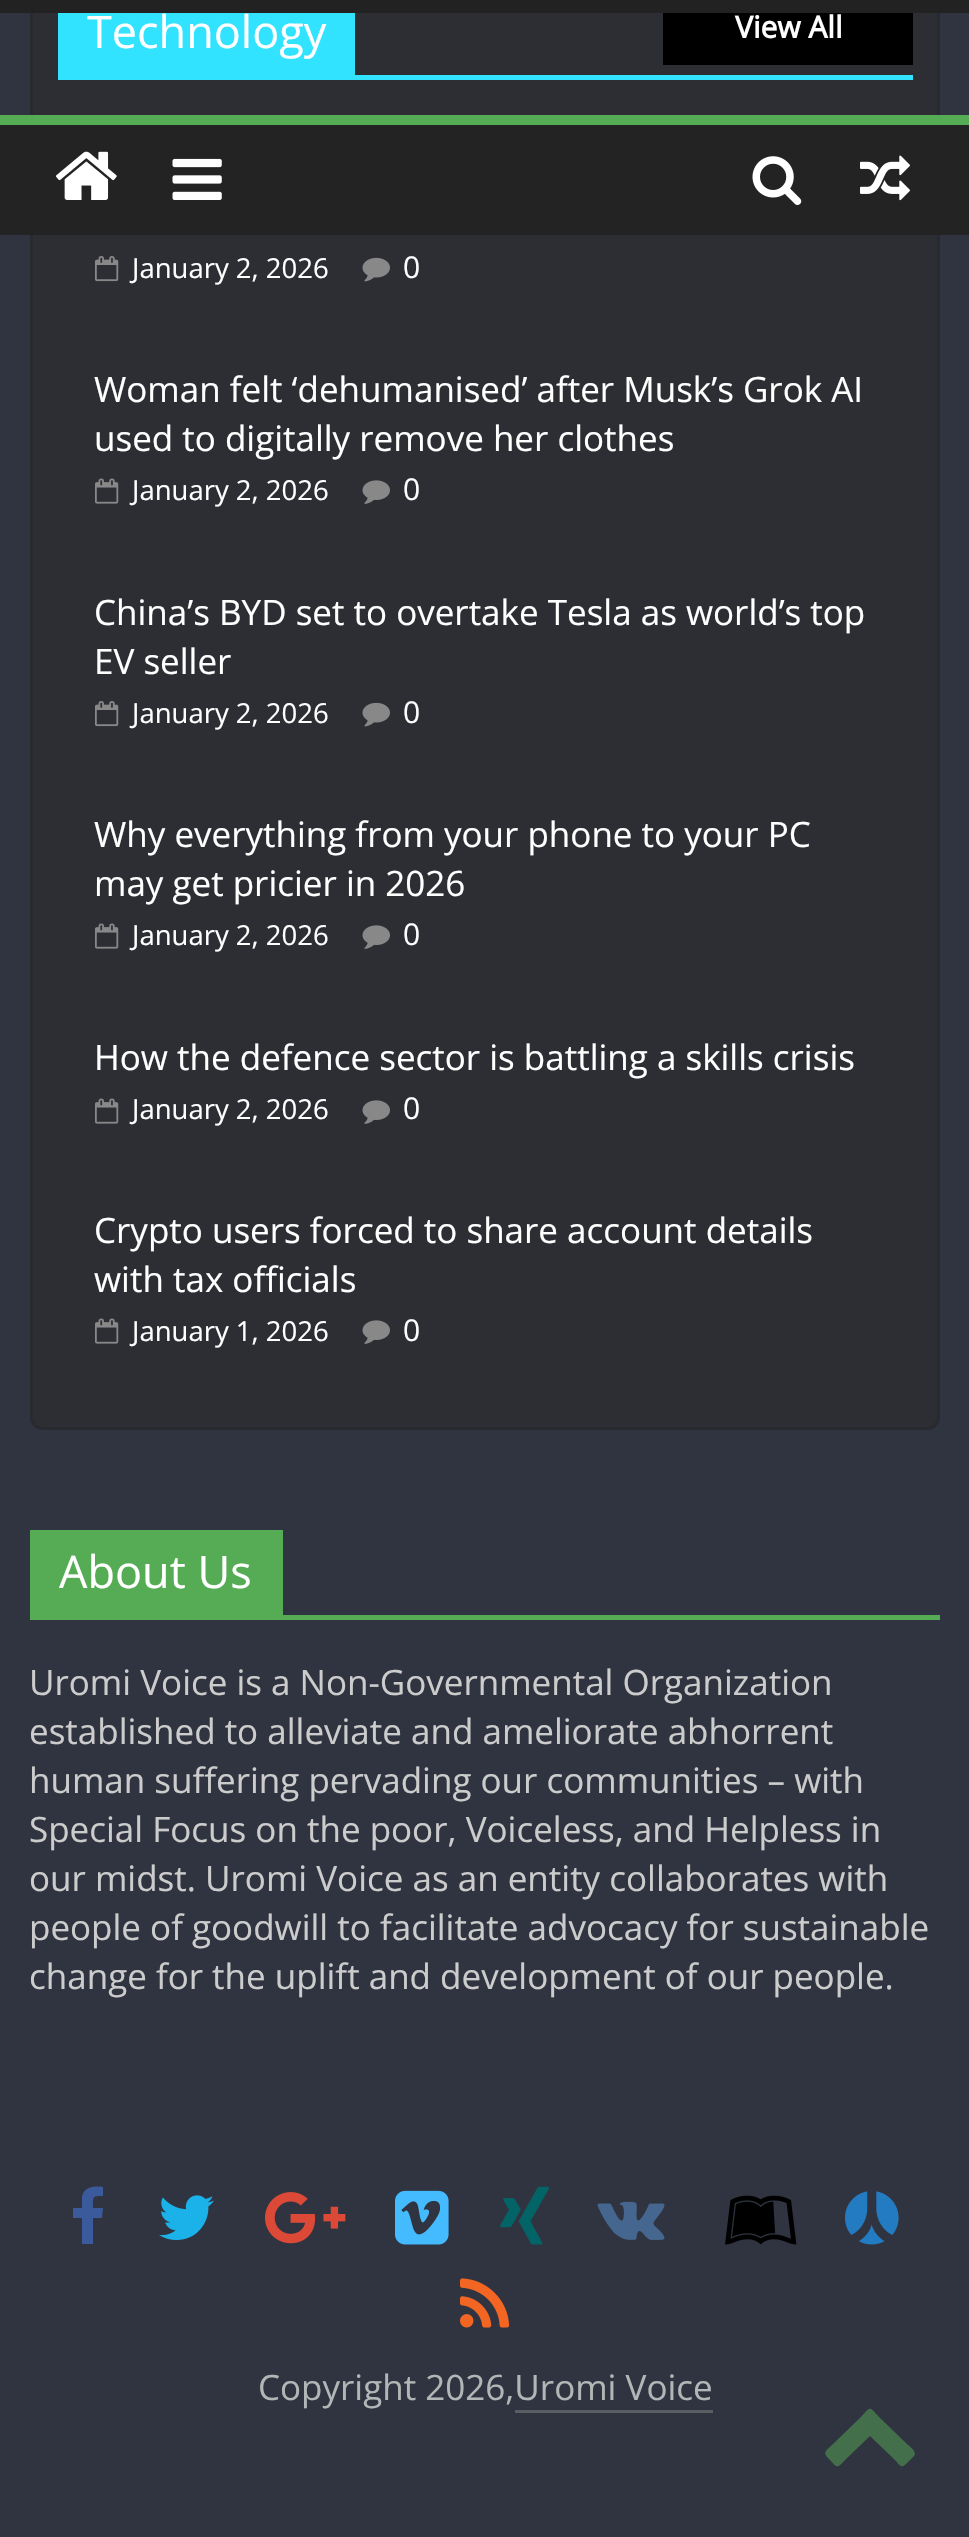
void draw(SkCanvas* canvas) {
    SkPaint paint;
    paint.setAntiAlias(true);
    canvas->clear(0xFF303440);
    paint.setColor(0xFF2C2E34);
    canvas->drawRoundRect(SkRect::MakeXYWH(30, -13, 910, 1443), 13, 13, paint);
    paint.setStyle(SkPaint::kStroke_Style);
    paint.setStrokeWidth(3);
    paint.setColor(0x1A000000);
    canvas->drawRoundRect(SkRect::MakeXYWH(31.5f, -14.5f, 907, 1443), 11.5f, 11.5f, paint);
    paint.setStyle(SkPaint::kFill_Style);
    paint.setColor(0xFF222222);
    canvas->drawRect(SkRect::MakeXYWH(0, 0, 969, 13), paint);
    paint.setColor(0xFF32E3FF);
    canvas->drawRect(SkRect::MakeXYWH(58, 75, 855, 5), paint);
    canvas->drawRect(SkRect::MakeXYWH(58, 13, 297, 62), paint);
    SkFont font1(fontMgr->matchFamilyStyle("Open Sans", SkFontStyle::Normal()), 45);
    font1.setSubpixel(true);
    paint.setColor(0xFFFFFFFF);
    canvas->drawString("Technology", 87, 48, font1, paint);
    paint.setColor(0xFF000000);
    canvas->drawRect(SkRect::MakeXYWH(663, 13, 250, 52), paint);
    SkFont font2(fontMgr->matchFamilyStyle("Open Sans", SkFontStyle::Bold()), 30);
    font2.setSubpixel(true);
    paint.setColor(0xFFFFFFFF);
    canvas->drawString("View All", 735, 38, font2, paint);
    canvas->drawImageRect(SkImages::DeferredFromEncodedData(SkData::MakeFromFileName("img1.png")), SkRect::MakeXYWH(95, 256, 24, 26), SkSamplingOptions());
    SkFont font3(fontMgr->matchFamilyStyle("Open Sans", SkFontStyle::Normal()), 27.5f);
    font3.setSubpixel(true);
    canvas->drawString("January 2, 2026", 132, 278, font3, paint);
    canvas->drawImageRect(SkImages::DeferredFromEncodedData(SkData::MakeFromFileName("img2.png")), SkRect::MakeXYWH(362, 257, 28, 25), SkSamplingOptions());
    SkFont font4(fontMgr->matchFamilyStyle("Open Sans", SkFontStyle::Normal()), 30);
    font4.setSubpixel(true);
    canvas->drawString("0", 403, 278, font4, paint);
    SkFont font5(fontMgr->matchFamilyStyle("Open Sans", SkFontStyle::Normal()), 35);
    font5.setSubpixel(true);
    canvas->drawString("Woman felt ‘dehumanised’ after Musk’s Grok AI", 94, 402, font5, paint);
    canvas->drawString("used to digitally remove her clothes", 94, 451, font5, paint);
    canvas->drawImageRect(SkImages::DeferredFromEncodedData(SkData::MakeFromFileName("img3.png")), SkRect::MakeXYWH(95, 478, 24, 26), SkSamplingOptions());
    canvas->drawString("January 2, 2026", 132, 500, font3, paint);
    canvas->drawImageRect(SkImages::DeferredFromEncodedData(SkData::MakeFromFileName("img4.png")), SkRect::MakeXYWH(362, 480, 28, 24), SkSamplingOptions());
    canvas->drawString("0", 403, 500, font4, paint);
    canvas->drawString("China’s BYD set to overtake Tesla as world’s top", 94, 625, font5, paint);
    canvas->drawString("EV seller", 94, 674, font5, paint);
    canvas->drawImageRect(SkImages::DeferredFromEncodedData(SkData::MakeFromFileName("img1.png")), SkRect::MakeXYWH(95, 701, 24, 26), SkSamplingOptions());
    canvas->drawString("January 2, 2026", 132, 723, font3, paint);
    canvas->drawImageRect(SkImages::DeferredFromEncodedData(SkData::MakeFromFileName("img2.png")), SkRect::MakeXYWH(362, 702, 28, 25), SkSamplingOptions());
    canvas->drawString("0", 403, 723, font4, paint);
    canvas->drawString("Why everything from your phone to your PC", 94, 847, font5, paint);
    canvas->drawString("may get pricier in 2026", 94, 896, font5, paint);
    canvas->drawImageRect(SkImages::DeferredFromEncodedData(SkData::MakeFromFileName("img3.png")), SkRect::MakeXYWH(95, 923, 24, 26), SkSamplingOptions());
    canvas->drawString("January 2, 2026", 132, 945, font3, paint);
    canvas->drawImageRect(SkImages::DeferredFromEncodedData(SkData::MakeFromFileName("img4.png")), SkRect::MakeXYWH(362, 925, 28, 24), SkSamplingOptions());
    canvas->drawString("0", 403, 945, font4, paint);
    canvas->drawString("How the defence sector is battling a skills crisis", 94, 1070, font5, paint);
    canvas->drawImageRect(SkImages::DeferredFromEncodedData(SkData::MakeFromFileName("img3.png")), SkRect::MakeXYWH(95, 1098, 24, 26), SkSamplingOptions());
    canvas->drawString("January 2, 2026", 132, 1119, font3, paint);
    canvas->drawImageRect(SkImages::DeferredFromEncodedData(SkData::MakeFromFileName("img4.png")), SkRect::MakeXYWH(362, 1100, 28, 24), SkSamplingOptions());
    canvas->drawString("0", 403, 1119, font4, paint);
    canvas->drawString("Crypto users forced to share account details", 94, 1243, font5, paint);
    canvas->drawString("with tax officials", 94, 1292, font5, paint);
    canvas->drawImageRect(SkImages::DeferredFromEncodedData(SkData::MakeFromFileName("img3.png")), SkRect::MakeXYWH(95, 1318, 24, 26), SkSamplingOptions());
    canvas->drawString("January 1, 2026", 132, 1341, font3, paint);
    canvas->drawImageRect(SkImages::DeferredFromEncodedData(SkData::MakeFromFileName("img4.png")), SkRect::MakeXYWH(362, 1320, 28, 24), SkSamplingOptions());
    canvas->drawString("0", 403, 1341, font4, paint);
    paint.setColor(0xFF55AC55);
    canvas->drawRect(SkRect::MakeXYWH(30, 1615, 910, 5), paint);
    canvas->drawRect(SkRect::MakeXYWH(30, 1530, 253, 85), paint);
    paint.setColor(0xFFFFFFFF);
    canvas->drawString("About Us", 59, 1588, font1, paint);
    paint.setColor(0xFFCCCCCC);
    canvas->drawString("Uromi Voice is a Non-Governmental Organization", 29, 1695, font5, paint);
    canvas->drawString("established to alleviate and ameliorate abhorrent", 29, 1744, font5, paint);
    canvas->drawString("human suffering pervading our communities – with", 29, 1793, font5, paint);
    canvas->drawString("Special Focus on the poor, Voiceless, and Helpless in", 29, 1842, font5, paint);
    canvas->drawString("our midst. Uromi Voice as an entity collaborates with", 29, 1891, font5, paint);
    canvas->drawString("people of goodwill to facilitate advocacy for sustainable", 29, 1940, font5, paint);
    canvas->drawString("change for the uplift and development of our people.", 29, 1989, font5, paint);
    paint.setColor(0xFF3B5A9B);
    canvas->drawPath(SkPathBuilder().moveTo(103, 2187).lineTo(103, 2196).cubicTo(92, 2196, 93, 2196, 93, 2208).lineTo(103, 2208).lineTo(102, 2218).lineTo(93, 2218).lineTo(93, 2244).lineTo(82, 2244).lineTo(82, 2218).lineTo(73, 2218).lineTo(73, 2208).lineTo(82, 2208).lineTo(82, 2197).cubicTo(84, 2186, 95, 2186, 103, 2187).close().detach(), paint);
    canvas->drawImageRect(SkImages::DeferredFromEncodedData(SkData::MakeFromFileName("img5.png")), SkRect::MakeXYWH(159, 2195, 55, 45), SkSamplingOptions());
    canvas->drawImageRect(SkImages::DeferredFromEncodedData(SkData::MakeFromFileName("img6.png")), SkRect::MakeXYWH(265, 2192, 81, 52), SkSamplingOptions());
    canvas->drawImageRect(SkImages::DeferredFromEncodedData(SkData::MakeFromFileName("img7.png")), SkRect::MakeXYWH(395, 2190, 54, 55), SkSamplingOptions());
    canvas->drawImageRect(SkImages::DeferredFromEncodedData(SkData::MakeFromFileName("img8.png")), SkRect::MakeXYWH(500, 2186, 49, 59), SkSamplingOptions());
    canvas->drawImageRect(SkImages::DeferredFromEncodedData(SkData::MakeFromFileName("img9.png")), SkRect::MakeXYWH(597, 2201, 68, 39), SkSamplingOptions());
    canvas->drawImageRect(SkImages::DeferredFromEncodedData(SkData::MakeFromFileName("img10.png")), SkRect::MakeXYWH(725, 2195, 72, 50), SkSamplingOptions());
    canvas->drawImageRect(SkImages::DeferredFromEncodedData(SkData::MakeFromFileName("img11.png")), SkRect::MakeXYWH(845, 2191, 54, 54), SkSamplingOptions());
    canvas->drawImageRect(SkImages::DeferredFromEncodedData(SkData::MakeFromFileName("img12.png")), SkRect::MakeXYWH(460, 2278, 50, 50), SkSamplingOptions());
    paint.setColor(0xFFB1B6B6);
    canvas->drawString("Copyright 2026,Uromi Voice", 258, 2400, font5, paint);
    paint.setColor(0xFF5A5D62);
    canvas->drawRect(SkRect::MakeXYWH(515, 2410, 198, 3), paint);
    paint.setColor(0xFF232323);
    canvas->drawRect(SkRect::MakeXYWH(0, 125, 969, 110), paint);
    paint.setColor(0xFF55AC55);
    canvas->drawRect(SkRect::MakeXYWH(0, 115, 969, 10), paint);
    canvas->drawImageRect(SkImages::DeferredFromEncodedData(SkData::MakeFromFileName("img13.png")), SkRect::MakeXYWH(56, 151, 61, 49), SkSamplingOptions());
    canvas->drawImageRect(SkImages::DeferredFromEncodedData(SkData::MakeFromFileName("img14.png")), SkRect::MakeXYWH(172, 158, 50, 42), SkSamplingOptions());
    canvas->drawImageRect(SkImages::DeferredFromEncodedData(SkData::MakeFromFileName("img15.png")), SkRect::MakeXYWH(752, 156, 50, 49), SkSamplingOptions());
    canvas->drawImageRect(SkImages::DeferredFromEncodedData(SkData::MakeFromFileName("img16.png")), SkRect::MakeXYWH(860, 155, 50, 46), SkSamplingOptions());
    paint.setColor(0xFF43704B);
    canvas->drawPath(SkPathBuilder().moveTo(914, 2456).lineTo(906, 2464).cubicTo(901, 2469, 900, 2465, 895, 2460).lineTo(870, 2436).lineTo(845, 2460).cubicTo(836, 2470, 837, 2467, 828, 2458).cubicTo(822, 2452, 827, 2450, 833, 2444).lineTo(861, 2417).cubicTo(871, 2406, 869, 2406, 879, 2417).lineTo(907, 2444).cubicTo(908, 2445, 918, 2452, 914, 2456).close().detach(), paint);
}
